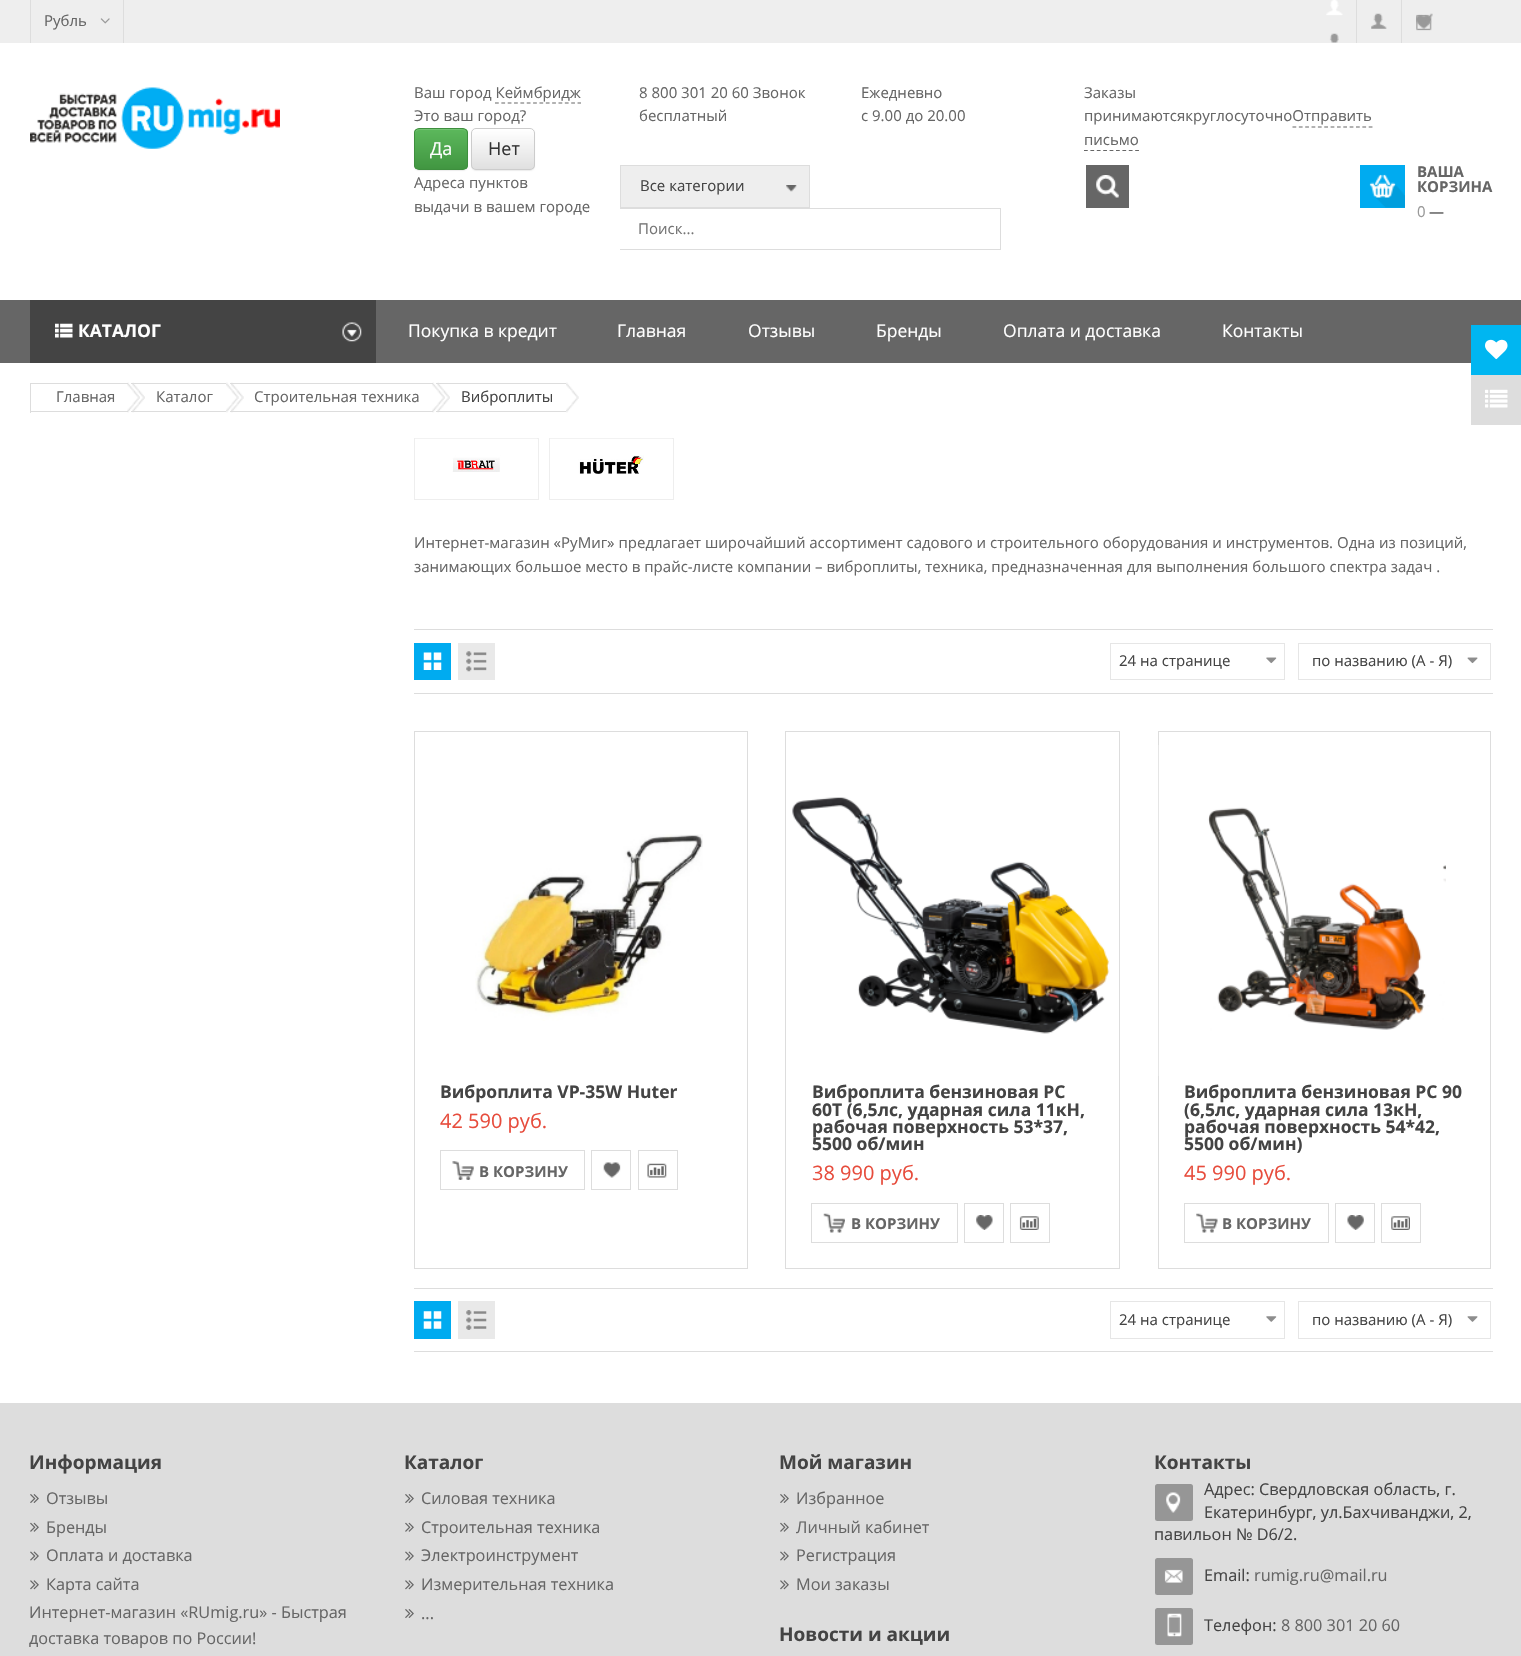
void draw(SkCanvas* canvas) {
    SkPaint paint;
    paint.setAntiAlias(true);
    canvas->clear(0xFFFFFFFF);
    paint.setColor(0xFFEEEEEE);
    canvas->drawRect(SkRect::MakeXYWH(0, 0, 1521, 43), paint);
    paint.setColor(0xFFDDDDDD);
    canvas->drawRect(SkRect::MakeXYWH(123, 0, 1, 43), paint);
    canvas->drawRect(SkRect::MakeXYWH(30, 0, 1, 43), paint);
    SkFont font1(fontMgr->matchFamilyStyle("Open Sans", SkFontStyle::Normal()), 15);
    font1.setSubpixel(true);
    paint.setColor(0xFF666666);
    canvas->drawString("Рубль", 44, 26, font1, paint);
    canvas->drawImageRect(SkImages::DeferredFromEncodedData(SkData::MakeFromFileName("img1.png")), SkRect::MakeXYWH(100, 18, 10, 6), SkSamplingOptions());
    paint.setColor(0xFFDDDDDD);
    canvas->drawRect(SkRect::MakeXYWH(1356, 0, 1, 43), paint);
    canvas->drawImageRect(SkImages::DeferredFromEncodedData(SkData::MakeFromFileName("img2.png")), SkRect::MakeXYWH(1326, 0, 17, 43), SkSamplingOptions());
    canvas->drawRect(SkRect::MakeXYWH(1401, 0, 1, 43), paint);
    canvas->drawImageRect(SkImages::DeferredFromEncodedData(SkData::MakeFromFileName("img3.png")), SkRect::MakeXYWH(1371, 13, 16, 16), SkSamplingOptions());
    canvas->drawImageRect(SkImages::DeferredFromEncodedData(SkData::MakeFromFileName("img5.png")), SkRect::MakeXYWH(1416, 14, 16, 15), SkSamplingOptions());
    canvas->drawImageRect(SkImages::DeferredFromEncodedData(SkData::MakeFromFileName("img4.png")), SkRect::MakeXYWH(1416, 13, 17, 18), SkSamplingOptions());
    canvas->drawImageRect(SkImages::DeferredFromEncodedData(SkData::MakeFromFileName("img6.png")), SkRect::MakeXYWH(30, 87, 250, 62), SkSamplingOptions());
    paint.setColor(0xFF666666);
    canvas->drawString("Ваш город Кеймбридж", 414, 98, font1, paint);
    paint.setStyle(SkPaint::kStroke_Style);
    paint.setStrokeWidth(1.2f);
    paint.setPathEffect(SkDashPathEffect::Make({{3.75f, 2.6f}}, 0));
    canvas->drawPath(SkPathBuilder().moveTo(495, 103).lineTo(581, 103).detach(), paint);
    paint.setPathEffect(nullptr);
    paint.setStyle(SkPaint::kFill_Style);
    canvas->drawString("Это ваш город?", 414, 121, font1, paint);
    paint.setColor(0x12000000);
    paint.setMaskFilter(SkMaskFilter::MakeBlur(kNormal_SkBlurStyle, 0.5f));
    canvas->drawRoundRect(SkRect::MakeXYWH(414, 129, 54, 42), 5, 5, paint);
    paint.setMaskFilter(nullptr);
    canvas->save();
    canvas->clipPath(SkPathBuilder().moveTo(419, 128).lineTo(463, 128).cubicTo(466, 128, 468, 130, 468, 133).lineTo(468, 165).cubicTo(468, 168, 466, 170, 463, 170).lineTo(419, 170).cubicTo(416, 170, 414, 168, 414, 165).lineTo(414, 133).cubicTo(414, 130, 416, 128, 419, 128).close().detach(), true);
    {
        const SkColor colors[] = {0xFF5CB85C, 0xFF419641};
        const float stops[] = {0, 1};
        const SkPoint ends[] = {{441, 129}, {441, 169}};
        paint.setShader(SkGradientShader::MakeLinear(ends, colors, stops, 2, SkTileMode::kClamp));
        paint.setAlpha(255);
    }
    canvas->drawRect(SkRect::MakeXYWH(414, 129, 54, 40), paint);
    canvas->restore();
    paint.setShader(nullptr);
    paint.setColor(0xFF74C374);
    canvas->drawPath(SkPathBuilder().moveTo(419, 130).lineTo(462, 130).cubicTo(465, 130, 466, 132, 466, 134).cubicTo(466, 128, 460, 129, 455, 129).lineTo(426, 129).cubicTo(421, 129, 415, 128, 415, 134).cubicTo(415, 132, 417, 130, 419, 130).close().detach(), paint);
    paint.setStyle(SkPaint::kStroke_Style);
    paint.setStrokeWidth(1);
    paint.setColor(0xFF3E8F3E);
    canvas->drawRoundRect(SkRect::MakeXYWH(414.5f, 128.5f, 53, 41), 4.5f, 4.5f, paint);
    SkFont font2(fontMgr->matchFamilyStyle("Open Sans", SkFontStyle::Normal()), 18);
    font2.setSubpixel(true);
    paint.setStyle(SkPaint::kFill_Style);
    paint.setColor(0xFFFFFFFF);
    canvas->drawString("Да", 430, 155, font2, paint);
    paint.setColor(0x12000000);
    paint.setMaskFilter(SkMaskFilter::MakeBlur(kNormal_SkBlurStyle, 0.5f));
    canvas->drawRoundRect(SkRect::MakeXYWH(471, 129, 64, 42), 5, 5, paint);
    paint.setMaskFilter(nullptr);
    canvas->save();
    canvas->clipPath(SkPathBuilder().moveTo(476, 128).lineTo(530, 128).cubicTo(533, 128, 535, 130, 535, 133).lineTo(535, 165).cubicTo(535, 168, 533, 170, 530, 170).lineTo(476, 170).cubicTo(473, 170, 471, 168, 471, 165).lineTo(471, 133).cubicTo(471, 130, 473, 128, 476, 128).close().detach(), true);
    {
        const SkColor colors[] = {0xFFFFFFFF, 0xFFE0E0E0};
        const float stops[] = {0, 1};
        const SkPoint ends[] = {{503, 129}, {503, 169}};
        paint.setShader(SkGradientShader::MakeLinear(ends, colors, stops, 2, SkTileMode::kClamp));
        paint.setAlpha(255);
    }
    canvas->drawRect(SkRect::MakeXYWH(471, 129, 64, 40), paint);
    canvas->restore();
    paint.setStyle(SkPaint::kStroke_Style);
    paint.setShader(nullptr);
    paint.setColor(0xFFCCCCCC);
    canvas->drawRoundRect(SkRect::MakeXYWH(471.5f, 128.5f, 63, 41), 4.5f, 4.5f, paint);
    paint.setStyle(SkPaint::kFill_Style);
    paint.setColor(0xFF333333);
    canvas->drawString("Нет", 488, 155, font2, paint);
    paint.setColor(0xFF666666);
    canvas->drawString("Адреса пунктов", 414, 188, font1, paint);
    canvas->drawString("выдачи в вашем городе", 414, 212, font1, paint);
    canvas->drawString("8 800 301 20 60 Звонок", 639, 98, font1, paint);
    canvas->drawString("бесплатный", 639, 121, font1, paint);
    canvas->drawString("Ежедневно", 861, 98, font1, paint);
    canvas->drawString("с 9.00 до 20.00", 861, 121, font1, paint);
    canvas->drawString("Заказы", 1084, 98, font1, paint);
    canvas->drawString("принимаютсякруглосуточноОтправить", 1084, 121, font1, paint);
    canvas->drawString("письмо", 1084, 145, font1, paint);
    paint.setStyle(SkPaint::kStroke_Style);
    paint.setStrokeWidth(1.2f);
    paint.setPathEffect(SkDashPathEffect::Make({{3.75f, 2.6f}}, 0));
    canvas->drawPath(SkPathBuilder().moveTo(1292.5f, 127).lineTo(1372.5f, 127).detach(), paint);
    paint.setPathEffect(nullptr);
    paint.setPathEffect(SkDashPathEffect::Make({{3.75f, 2.65f}}, 0));
    canvas->drawPath(SkPathBuilder().moveTo(1084, 150.5f).lineTo(1139, 150.5f).detach(), paint);
    paint.setPathEffect(nullptr);
    paint.setStyle(SkPaint::kFill_Style);
    paint.setColor(0xFFEEEEEE);
    canvas->drawRect(SkRect::MakeXYWH(620.5f, 165.5f, 189, 42), paint);
    paint.setStyle(SkPaint::kStroke_Style);
    paint.setStrokeWidth(1);
    paint.setColor(0xFFDDDDDD);
    canvas->drawRect(SkRect::MakeXYWH(620.5f, 165.5f, 189, 42), paint);
    paint.setStyle(SkPaint::kFill_Style);
    paint.setColor(0xFF444444);
    canvas->drawString("Все категории", 640, 191, font1, paint);
    canvas->drawImageRect(SkImages::DeferredFromEncodedData(SkData::MakeFromFileName("img7.png")), SkRect::MakeXYWH(786, 185, 11, 7), SkSamplingOptions());
    paint.setColor(0xFF666666);
    canvas->drawRect(SkRect::MakeXYWH(1086, 165, 43, 43), paint);
    canvas->drawImageRect(SkImages::DeferredFromEncodedData(SkData::MakeFromFileName("img8.png")), SkRect::MakeXYWH(1096, 175, 23, 23), SkSamplingOptions());
    paint.setColor(0xFFDDDDDD);
    canvas->drawRect(SkRect::MakeXYWH(620, 208, 381, 1), paint);
    canvas->drawRect(SkRect::MakeXYWH(1000, 208, 1, 42), paint);
    canvas->drawRect(SkRect::MakeXYWH(620, 249, 381, 1), paint);
    paint.setColor(0xFF757575);
    canvas->drawString("Поиск...", 638, 234, font1, paint);
    paint.setColor(0xFF00ABF0);
    canvas->drawRect(SkRect::MakeXYWH(1360, 165, 45, 43), paint);
    canvas->drawImageRect(SkImages::DeferredFromEncodedData(SkData::MakeFromFileName("img9.png")), SkRect::MakeXYWH(1369, 174, 36, 34), SkSamplingOptions());
    SkFont font3(fontMgr->matchFamilyStyle("Open Sans", SkFontStyle::Bold()), 15);
    font3.setSubpixel(true);
    paint.setColor(0xFF666666);
    canvas->drawString("ВАША", 1417, 177, font3, paint);
    canvas->drawString("КОРЗИНА", 1417, 192, font3, paint);
    paint.setColor(0xFF999999);
    canvas->drawString("0", 1417, 217, font1, paint);
    paint.setColor(0xFF444444);
    canvas->drawString("—", 1429, 217, font1, paint);
    paint.setColor(0xFF666666);
    canvas->drawRect(SkRect::MakeXYWH(0, 300, 1521, 63), paint);
    paint.setColor(0xFF444444);
    canvas->drawRect(SkRect::MakeXYWH(30, 300, 346, 63), paint);
    canvas->drawImageRect(SkImages::DeferredFromEncodedData(SkData::MakeFromFileName("img10.png")), SkRect::MakeXYWH(55, 323, 18, 15), SkSamplingOptions());
    SkFont font4(fontMgr->matchFamilyStyle("Open Sans", SkFontStyle::Bold()), 17.5f);
    font4.setSubpixel(true);
    paint.setColor(0xFFFFFFFF);
    canvas->drawString("КАТАЛОГ", 78, 337, font4, paint);
    canvas->drawImageRect(SkImages::DeferredFromEncodedData(SkData::MakeFromFileName("img11.png")), SkRect::MakeXYWH(342, 322, 20, 20), SkSamplingOptions());
    SkFont font5(fontMgr->matchFamilyStyle("Open Sans", SkFontStyle::Normal()), 17.5f);
    font5.setSubpixel(true);
    canvas->drawString("Покупка в кредит", 408, 337, font5, paint);
    canvas->drawString("Главная", 617, 337, font5, paint);
    canvas->drawString("Отзывы", 748, 337, font5, paint);
    canvas->drawString("Бренды", 876, 337, font5, paint);
    canvas->drawString("Оплата и доставка", 1003, 337, font5, paint);
    canvas->drawString("Контакты", 1222, 337, font5, paint);
    paint.setColor(0xFFDDDDDD);
    canvas->drawRect(SkRect::MakeXYWH(30, 383, 1, 30), paint);
    canvas->drawRect(SkRect::MakeXYWH(31, 383, 97, 1), paint);
    canvas->drawRect(SkRect::MakeXYWH(31, 411, 97, 1), paint);
    paint.setColor(0xFF666666);
    canvas->drawString("Главная", 56, 402, font1, paint);
    canvas->drawImageRect(SkImages::DeferredFromEncodedData(SkData::MakeFromFileName("img12.png")), SkRect::MakeXYWH(127, 382, 13, 31), SkSamplingOptions());
    paint.setColor(0xFFDDDDDD);
    canvas->drawRect(SkRect::MakeXYWH(131, 383, 95, 1), paint);
    canvas->drawRect(SkRect::MakeXYWH(131, 411, 95, 1), paint);
    canvas->drawImageRect(SkImages::DeferredFromEncodedData(SkData::MakeFromFileName("img13.png")), SkRect::MakeXYWH(132, 382, 13, 31), SkSamplingOptions());
    paint.setColor(0xFF666666);
    canvas->drawString("Каталог", 156, 402, font1, paint);
    canvas->drawImageRect(SkImages::DeferredFromEncodedData(SkData::MakeFromFileName("img14.png")), SkRect::MakeXYWH(226, 382, 13, 31), SkSamplingOptions());
    paint.setColor(0xFFDDDDDD);
    canvas->drawRect(SkRect::MakeXYWH(230, 383, 203, 1), paint);
    canvas->drawRect(SkRect::MakeXYWH(230, 411, 203, 1), paint);
    canvas->drawImageRect(SkImages::DeferredFromEncodedData(SkData::MakeFromFileName("img15.png")), SkRect::MakeXYWH(231, 382, 13, 31), SkSamplingOptions());
    paint.setColor(0xFF666666);
    canvas->drawString("Строительная техника", 254, 402, font1, paint);
    canvas->drawImageRect(SkImages::DeferredFromEncodedData(SkData::MakeFromFileName("img12.png")), SkRect::MakeXYWH(432, 382, 13, 31), SkSamplingOptions());
    paint.setColor(0xFFDDDDDD);
    canvas->drawRect(SkRect::MakeXYWH(436, 383, 130, 1), paint);
    canvas->drawRect(SkRect::MakeXYWH(436, 411, 130, 1), paint);
    canvas->drawImageRect(SkImages::DeferredFromEncodedData(SkData::MakeFromFileName("img13.png")), SkRect::MakeXYWH(437, 382, 13, 31), SkSamplingOptions());
    paint.setColor(0xFF444444);
    canvas->drawString("Виброплиты", 461, 402, font1, paint);
    canvas->drawImageRect(SkImages::DeferredFromEncodedData(SkData::MakeFromFileName("img14.png")), SkRect::MakeXYWH(566, 382, 13, 31), SkSamplingOptions());
    paint.setStyle(SkPaint::kStroke_Style);
    paint.setColor(0xFFEEEEEE);
    canvas->drawRect(SkRect::MakeXYWH(414.5f, 438.5f, 124, 61), paint);
    canvas->drawImageRect(SkImages::DeferredFromEncodedData(SkData::MakeFromFileName("img16.png")), SkRect::MakeXYWH(415, 438, 122, 34), SkSamplingOptions());
    canvas->drawRect(SkRect::MakeXYWH(549.5f, 438.5f, 124, 61), paint);
    canvas->drawImageRect(SkImages::DeferredFromEncodedData(SkData::MakeFromFileName("img17.png")), SkRect::MakeXYWH(550, 438, 122, 36), SkSamplingOptions());
    paint.setStyle(SkPaint::kFill_Style);
    paint.setColor(0xFF666666);
    canvas->drawString("Интернет-магазин «РуМиг» предлагает широчайший ассортимент садового и строительного оборудования и инструментов. Одна из позиций,", 414, 548, font1, paint);
    canvas->drawString("занимающих большое место в прайс-листе компании – виброплиты, техника, предназначенная для выполнения большого спектра задач .", 414, 572, font1, paint);
    paint.setColor(0xFFDDDDDD);
    canvas->drawRect(SkRect::MakeXYWH(414, 629, 1079, 1), paint);
    canvas->drawRect(SkRect::MakeXYWH(414, 693, 1079, 1), paint);
    paint.setColor(0xFF00ABF0);
    canvas->drawRect(SkRect::MakeXYWH(414, 643, 37, 37), paint);
    canvas->drawImageRect(SkImages::DeferredFromEncodedData(SkData::MakeFromFileName("img18.png")), SkRect::MakeXYWH(423, 652, 19, 18), SkSamplingOptions());
    paint.setColor(0xFFE9E9E9);
    canvas->drawRect(SkRect::MakeXYWH(458, 643, 37, 37), paint);
    canvas->drawImageRect(SkImages::DeferredFromEncodedData(SkData::MakeFromFileName("img19.png")), SkRect::MakeXYWH(466, 651, 21, 21), SkSamplingOptions());
    paint.setStyle(SkPaint::kStroke_Style);
    paint.setColor(0xFFE6E6E6);
    canvas->drawRect(SkRect::MakeXYWH(1110.5f, 643.5f, 174, 36), paint);
    paint.setStyle(SkPaint::kFill_Style);
    paint.setColor(0xFF444444);
    canvas->drawString("24 на странице", 1119, 666, font1, paint);
    canvas->drawImageRect(SkImages::DeferredFromEncodedData(SkData::MakeFromFileName("img20.png")), SkRect::MakeXYWH(1266, 657, 11, 7), SkSamplingOptions());
    paint.setStyle(SkPaint::kStroke_Style);
    paint.setColor(0xFFE6E6E6);
    canvas->drawRect(SkRect::MakeXYWH(1298.5f, 643.5f, 192, 36), paint);
    paint.setStyle(SkPaint::kFill_Style);
    paint.setColor(0xFF444444);
    canvas->drawString("по названию (А - Я)", 1312, 666, font1, paint);
    canvas->drawImageRect(SkImages::DeferredFromEncodedData(SkData::MakeFromFileName("img21.png")), SkRect::MakeXYWH(1467, 657, 11, 7), SkSamplingOptions());
    paint.setStyle(SkPaint::kStroke_Style);
    paint.setColor(0xFFDDDDDD);
    canvas->drawRect(SkRect::MakeXYWH(414.5f, 731.5f, 333, 537), paint);
    canvas->drawImageRect(SkImages::DeferredFromEncodedData(SkData::MakeFromFileName("img22.png")), SkRect::MakeXYWH(475, 834, 228, 187), SkSamplingOptions());
    paint.setStyle(SkPaint::kFill_Style);
    paint.setColor(0xFF444444);
    canvas->drawString("Виброплита VP-35W Huter", 440, 1098, font4, paint);
    SkFont font6(fontMgr->matchFamilyStyle("Open Sans", SkFontStyle::Normal()), 20);
    font6.setSubpixel(true);
    paint.setColor(0xFFE74C3C);
    canvas->drawString("42 590 руб.", 440, 1128, font6, paint);
    paint.setStyle(SkPaint::kStroke_Style);
    paint.setColor(0xFFDDDDDD);
    canvas->drawRect(SkRect::MakeXYWH(440.5f, 1150.5f, 144, 39), paint);
    canvas->drawImageRect(SkImages::DeferredFromEncodedData(SkData::MakeFromFileName("img23.png")), SkRect::MakeXYWH(452, 1161, 22, 19), SkSamplingOptions());
    paint.setStyle(SkPaint::kFill_Style);
    paint.setColor(0xFF666666);
    canvas->drawString("В КОРЗИНУ", 479, 1177, font3, paint);
    canvas->drawImageRect(SkImages::DeferredFromEncodedData(SkData::MakeFromFileName("img24.png")), SkRect::MakeXYWH(603, 1162, 18, 16), SkSamplingOptions());
    paint.setStyle(SkPaint::kStroke_Style);
    paint.setColor(0xFFDDDDDD);
    canvas->drawRect(SkRect::MakeXYWH(591.5f, 1150.5f, 39, 39), paint);
    canvas->drawImageRect(SkImages::DeferredFromEncodedData(SkData::MakeFromFileName("img25.png")), SkRect::MakeXYWH(647, 1163, 20, 15), SkSamplingOptions());
    canvas->drawRect(SkRect::MakeXYWH(638.5f, 1150.5f, 39, 39), paint);
    canvas->drawRect(SkRect::MakeXYWH(785.5f, 731.5f, 334, 537), paint);
    canvas->drawImageRect(SkImages::DeferredFromEncodedData(SkData::MakeFromFileName("img26.png")), SkRect::MakeXYWH(792, 797, 318, 237), SkSamplingOptions());
    paint.setStyle(SkPaint::kFill_Style);
    paint.setColor(0xFF444444);
    canvas->drawString("Виброплита бензиновая PC", 812, 1098, font4, paint);
    canvas->drawString("60T (6,5лс, ударная сила 11кН,", 812, 1116, font4, paint);
    canvas->drawString("рабочая поверхность 53*37,", 812, 1133, font4, paint);
    canvas->drawString("5500 об/мин", 812, 1150, font4, paint);
    paint.setColor(0xFFE74C3C);
    canvas->drawString("38 990 руб.", 812, 1180, font6, paint);
    paint.setStyle(SkPaint::kStroke_Style);
    paint.setColor(0xFFDDDDDD);
    canvas->drawRect(SkRect::MakeXYWH(811.5f, 1203.5f, 146, 39), paint);
    canvas->drawImageRect(SkImages::DeferredFromEncodedData(SkData::MakeFromFileName("img27.png")), SkRect::MakeXYWH(823, 1213, 22, 20), SkSamplingOptions());
    paint.setStyle(SkPaint::kFill_Style);
    paint.setColor(0xFF666666);
    canvas->drawString("В КОРЗИНУ", 851, 1229, font3, paint);
    canvas->drawImageRect(SkImages::DeferredFromEncodedData(SkData::MakeFromFileName("img28.png")), SkRect::MakeXYWH(976, 1215, 17, 15), SkSamplingOptions());
    paint.setStyle(SkPaint::kStroke_Style);
    paint.setColor(0xFFDDDDDD);
    canvas->drawRect(SkRect::MakeXYWH(964.5f, 1203.5f, 39, 39), paint);
    canvas->drawImageRect(SkImages::DeferredFromEncodedData(SkData::MakeFromFileName("img29.png")), SkRect::MakeXYWH(1019, 1216, 20, 14), SkSamplingOptions());
    canvas->drawRect(SkRect::MakeXYWH(1010.5f, 1203.5f, 39, 39), paint);
    canvas->drawRect(SkRect::MakeXYWH(1158.5f, 731.5f, 332, 537), paint);
    canvas->drawImageRect(SkImages::DeferredFromEncodedData(SkData::MakeFromFileName("img30.png")), SkRect::MakeXYWH(1158, 745, 288, 331), SkSamplingOptions());
    paint.setStyle(SkPaint::kFill_Style);
    paint.setColor(0xFF444444);
    canvas->drawString("Виброплита бензиновая PC 90", 1184, 1098, font4, paint);
    canvas->drawString("(6,5лс, ударная сила 13кН,", 1184, 1116, font4, paint);
    canvas->drawString("рабочая поверхность 54*42,", 1184, 1133, font4, paint);
    canvas->drawString("5500 об/мин)", 1184, 1150, font4, paint);
    paint.setColor(0xFFE74C3C);
    canvas->drawString("45 990 руб.", 1184, 1180, font6, paint);
    paint.setStyle(SkPaint::kStroke_Style);
    paint.setColor(0xFFDDDDDD);
    canvas->drawRect(SkRect::MakeXYWH(1184.5f, 1203.5f, 144, 39), paint);
    canvas->drawImageRect(SkImages::DeferredFromEncodedData(SkData::MakeFromFileName("img31.png")), SkRect::MakeXYWH(1196, 1213, 22, 20), SkSamplingOptions());
    paint.setStyle(SkPaint::kFill_Style);
    paint.setColor(0xFF666666);
    canvas->drawString("В КОРЗИНУ", 1222, 1229, font3, paint);
    canvas->drawImageRect(SkImages::DeferredFromEncodedData(SkData::MakeFromFileName("img32.png")), SkRect::MakeXYWH(1347, 1215, 17, 15), SkSamplingOptions());
    paint.setStyle(SkPaint::kStroke_Style);
    paint.setColor(0xFFDDDDDD);
    canvas->drawRect(SkRect::MakeXYWH(1335.5f, 1203.5f, 39, 39), paint);
    canvas->drawImageRect(SkImages::DeferredFromEncodedData(SkData::MakeFromFileName("img33.png")), SkRect::MakeXYWH(1391, 1216, 19, 14), SkSamplingOptions());
    canvas->drawRect(SkRect::MakeXYWH(1381.5f, 1203.5f, 39, 39), paint);
    paint.setStyle(SkPaint::kFill_Style);
    canvas->drawRect(SkRect::MakeXYWH(414, 1288, 1079, 1), paint);
    canvas->drawRect(SkRect::MakeXYWH(414, 1351, 1079, 1), paint);
    paint.setColor(0xFF00ABF0);
    canvas->drawRect(SkRect::MakeXYWH(414, 1301, 37, 38), paint);
    canvas->drawImageRect(SkImages::DeferredFromEncodedData(SkData::MakeFromFileName("img34.png")), SkRect::MakeXYWH(423, 1311, 19, 18), SkSamplingOptions());
    paint.setColor(0xFFE9E9E9);
    canvas->drawRect(SkRect::MakeXYWH(458, 1301, 37, 38), paint);
    canvas->drawImageRect(SkImages::DeferredFromEncodedData(SkData::MakeFromFileName("img35.png")), SkRect::MakeXYWH(466, 1310, 21, 20), SkSamplingOptions());
    paint.setStyle(SkPaint::kStroke_Style);
    paint.setColor(0xFFE6E6E6);
    canvas->drawRect(SkRect::MakeXYWH(1110.5f, 1301.5f, 174, 37), paint);
    paint.setStyle(SkPaint::kFill_Style);
    paint.setColor(0xFF444444);
    canvas->drawString("24 на странице", 1119, 1325, font1, paint);
    canvas->drawImageRect(SkImages::DeferredFromEncodedData(SkData::MakeFromFileName("img36.png")), SkRect::MakeXYWH(1266, 1316, 11, 6), SkSamplingOptions());
    paint.setStyle(SkPaint::kStroke_Style);
    paint.setColor(0xFFE6E6E6);
    canvas->drawRect(SkRect::MakeXYWH(1298.5f, 1301.5f, 192, 37), paint);
    paint.setStyle(SkPaint::kFill_Style);
    paint.setColor(0xFF444444);
    canvas->drawString("по названию (А - Я)", 1312, 1325, font1, paint);
    canvas->drawImageRect(SkImages::DeferredFromEncodedData(SkData::MakeFromFileName("img37.png")), SkRect::MakeXYWH(1467, 1316, 11, 6), SkSamplingOptions());
    paint.setColor(0xFF00B6F1);
    canvas->drawRect(SkRect::MakeXYWH(1471, 325, 50, 50), paint);
    canvas->drawImageRect(SkImages::DeferredFromEncodedData(SkData::MakeFromFileName("img38.png")), SkRect::MakeXYWH(1485, 339, 23, 21), SkSamplingOptions());
    paint.setColor(0xFFDDDDDD);
    canvas->drawRect(SkRect::MakeXYWH(1471, 375, 50, 50), paint);
    canvas->drawImageRect(SkImages::DeferredFromEncodedData(SkData::MakeFromFileName("img39.png")), SkRect::MakeXYWH(1485, 389, 23, 19), SkSamplingOptions());
    canvas->drawRect(SkRect::MakeXYWH(0, 1403, 1521, 253), paint);
    SkFont font7(fontMgr->matchFamilyStyle("Open Sans", SkFontStyle::Bold()), 19);
    font7.setSubpixel(true);
    paint.setColor(0xFF444444);
    canvas->drawString("Информация", 29, 1469, font7, paint);
    canvas->drawImageRect(SkImages::DeferredFromEncodedData(SkData::MakeFromFileName("img40.png")), SkRect::MakeXYWH(30, 1494, 9, 9), SkSamplingOptions());
    SkFont font8(fontMgr->matchFamilyStyle("Open Sans", SkFontStyle::Normal()), 16.25f);
    font8.setSubpixel(true);
    paint.setColor(0xFF666666);
    canvas->drawString("Отзывы", 46, 1504, font8, paint);
    canvas->drawImageRect(SkImages::DeferredFromEncodedData(SkData::MakeFromFileName("img41.png")), SkRect::MakeXYWH(30, 1522, 9, 10), SkSamplingOptions());
    canvas->drawString("Бренды", 46, 1533, font8, paint);
    canvas->drawImageRect(SkImages::DeferredFromEncodedData(SkData::MakeFromFileName("img42.png")), SkRect::MakeXYWH(30, 1551, 9, 10), SkSamplingOptions());
    canvas->drawString("Оплата и доставка", 46, 1561, font8, paint);
    canvas->drawImageRect(SkImages::DeferredFromEncodedData(SkData::MakeFromFileName("img43.png")), SkRect::MakeXYWH(30, 1580, 9, 10), SkSamplingOptions());
    canvas->drawString("Карта сайта", 46, 1590, font8, paint);
    canvas->drawString("Интернет-магазин «RUmig.ru» - Быстрая", 29, 1618, font8, paint);
    canvas->drawString("доставка товаров по России!", 29, 1644, font8, paint);
    paint.setColor(0xFF444444);
    canvas->drawString("Каталог", 404, 1469, font7, paint);
    canvas->drawImageRect(SkImages::DeferredFromEncodedData(SkData::MakeFromFileName("img40.png")), SkRect::MakeXYWH(405, 1494, 9, 9), SkSamplingOptions());
    paint.setColor(0xFF666666);
    canvas->drawString("Силовая техника", 421, 1504, font8, paint);
    canvas->drawImageRect(SkImages::DeferredFromEncodedData(SkData::MakeFromFileName("img41.png")), SkRect::MakeXYWH(405, 1522, 9, 10), SkSamplingOptions());
    canvas->drawString("Строительная техника", 421, 1533, font8, paint);
    canvas->drawImageRect(SkImages::DeferredFromEncodedData(SkData::MakeFromFileName("img42.png")), SkRect::MakeXYWH(405, 1551, 9, 10), SkSamplingOptions());
    canvas->drawString("Электроинструмент", 421, 1561, font8, paint);
    canvas->drawImageRect(SkImages::DeferredFromEncodedData(SkData::MakeFromFileName("img43.png")), SkRect::MakeXYWH(405, 1580, 9, 10), SkSamplingOptions());
    canvas->drawString("Измерительная техника", 421, 1590, font8, paint);
    canvas->drawImageRect(SkImages::DeferredFromEncodedData(SkData::MakeFromFileName("img40.png")), SkRect::MakeXYWH(405, 1609, 9, 9), SkSamplingOptions());
    canvas->drawString("...", 421, 1619, font8, paint);
    paint.setColor(0xFF444444);
    canvas->drawString("Мой магазин", 779, 1469, font7, paint);
    canvas->drawImageRect(SkImages::DeferredFromEncodedData(SkData::MakeFromFileName("img40.png")), SkRect::MakeXYWH(780, 1494, 9, 9), SkSamplingOptions());
    paint.setColor(0xFF666666);
    canvas->drawString("Избранное", 796, 1504, font8, paint);
    canvas->drawImageRect(SkImages::DeferredFromEncodedData(SkData::MakeFromFileName("img41.png")), SkRect::MakeXYWH(780, 1522, 9, 10), SkSamplingOptions());
    canvas->drawString("Личный кабинет", 796, 1533, font8, paint);
    canvas->drawImageRect(SkImages::DeferredFromEncodedData(SkData::MakeFromFileName("img42.png")), SkRect::MakeXYWH(780, 1551, 9, 10), SkSamplingOptions());
    canvas->drawString("Регистрация", 796, 1561, font8, paint);
    canvas->drawImageRect(SkImages::DeferredFromEncodedData(SkData::MakeFromFileName("img43.png")), SkRect::MakeXYWH(780, 1580, 9, 10), SkSamplingOptions());
    canvas->drawString("Мои заказы", 796, 1590, font8, paint);
    paint.setColor(0xFF444444);
    canvas->drawString("Новости и акции", 779, 1641, font7, paint);
    canvas->drawString("Контакты", 1154, 1469, font7, paint);
    canvas->drawString("Адрес: Свердловская область, г.", 1204, 1495, font8, paint);
    canvas->drawString("Екатеринбург, ул.Бахчиванджи, 2,", 1204, 1518, font8, paint);
    canvas->drawString("павильон № D6/2.", 1154, 1540, font8, paint);
    paint.setColor(0xFF969696);
    canvas->drawRoundRect(SkRect::MakeXYWH(1155, 1484, 38, 37), 2.5f, 2.5f, paint);
    canvas->drawImageRect(SkImages::DeferredFromEncodedData(SkData::MakeFromFileName("img44.png")), SkRect::MakeXYWH(1166, 1492, 15, 21), SkSamplingOptions());
    canvas->drawRoundRect(SkRect::MakeXYWH(1155, 1558, 38, 37), 2.5f, 2.5f, paint);
    canvas->drawImageRect(SkImages::DeferredFromEncodedData(SkData::MakeFromFileName("img45.png")), SkRect::MakeXYWH(1164, 1569, 19, 14), SkSamplingOptions());
    paint.setColor(0xFF444444);
    canvas->drawString("Email:", 1204, 1581, font8, paint);
    paint.setColor(0xFF666666);
    canvas->drawString("rumig.ru@mail.ru", 1254, 1581, font8, paint);
    paint.setColor(0xFF969696);
    canvas->drawRoundRect(SkRect::MakeXYWH(1155, 1608, 38, 37), 2.5f, 2.5f, paint);
    canvas->drawImageRect(SkImages::DeferredFromEncodedData(SkData::MakeFromFileName("img46.png")), SkRect::MakeXYWH(1167, 1613, 15, 24), SkSamplingOptions());
    paint.setColor(0xFF444444);
    canvas->drawString("Телефон:", 1204, 1631, font8, paint);
    paint.setColor(0xFF666666);
    canvas->drawString("8 800 301 20 60", 1281, 1631, font8, paint);
}
